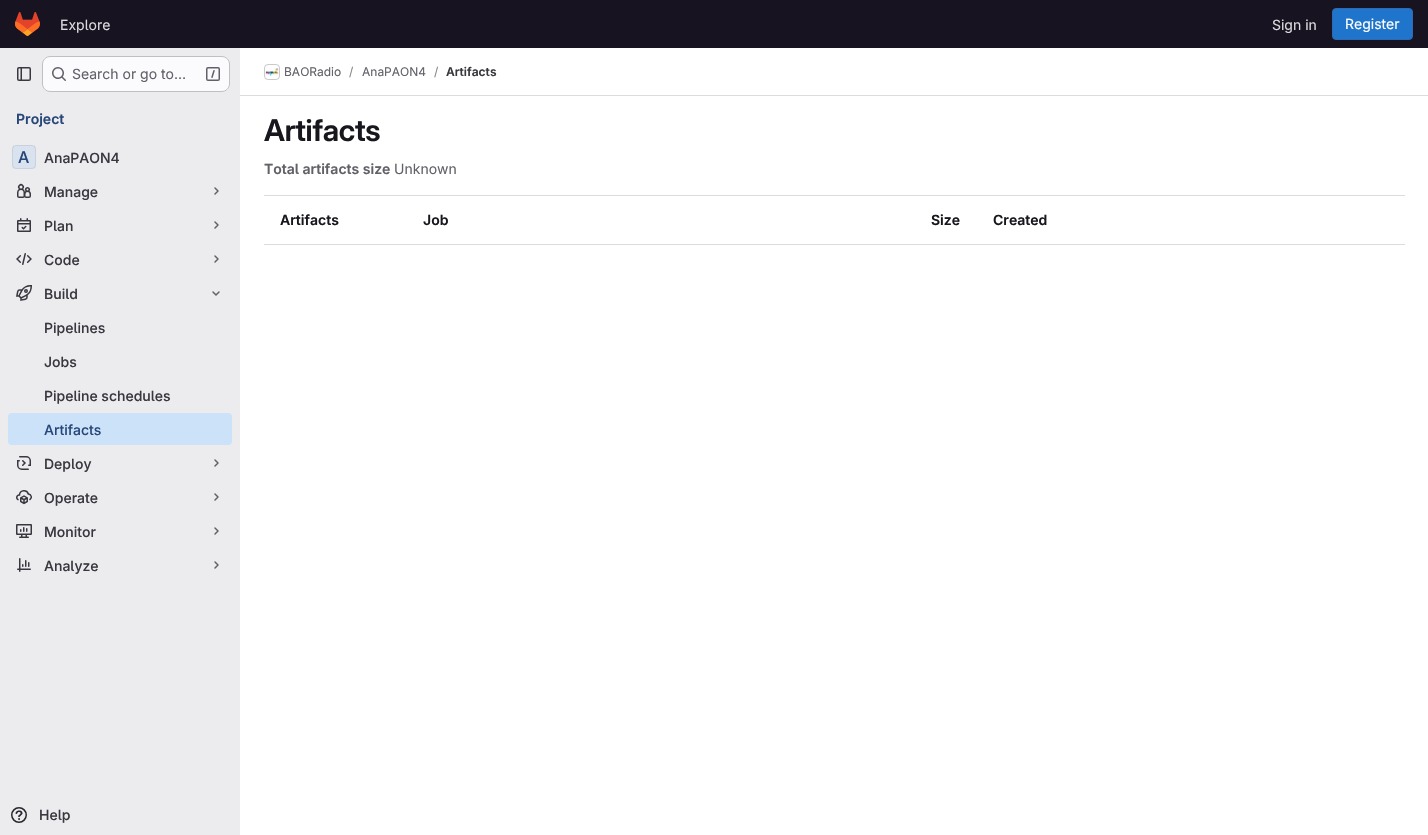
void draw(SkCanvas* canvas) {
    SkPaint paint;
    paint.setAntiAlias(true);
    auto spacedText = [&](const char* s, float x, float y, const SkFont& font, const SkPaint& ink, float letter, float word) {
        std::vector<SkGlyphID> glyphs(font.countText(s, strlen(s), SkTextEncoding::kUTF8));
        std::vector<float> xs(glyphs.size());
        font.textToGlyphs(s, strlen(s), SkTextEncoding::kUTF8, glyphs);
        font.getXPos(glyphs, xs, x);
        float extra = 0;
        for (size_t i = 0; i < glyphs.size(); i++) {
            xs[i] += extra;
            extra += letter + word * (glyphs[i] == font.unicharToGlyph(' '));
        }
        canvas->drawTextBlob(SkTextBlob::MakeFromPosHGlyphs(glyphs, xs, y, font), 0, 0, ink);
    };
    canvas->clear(0xFFFFFFFF);
    paint.setColor(0xFF171321);
    canvas->drawRect(SkRect::MakeXYWH(0, 0, 1428, 48), paint);
    canvas->drawImageRect(SkImages::DeferredFromEncodedData(SkData::MakeFromFileName("img1.png")), SkRect::MakeXYWH(15, 12, 25, 24), SkSamplingOptions());
    SkFont font1(fontMgr->matchFamilyStyle("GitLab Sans", SkFontStyle::Normal()), 14);
    font1.setSubpixel(true);
    paint.setColor(0xFFDCDCDE);
    canvas->drawString("Explore", 60, 30, font1, paint);
    canvas->drawString("Sign in", 1272, 30, font1, paint);
    paint.setColor(0xFF1F75CB);
    canvas->drawRoundRect(SkRect::MakeXYWH(1332.5f, 8.5f, 80, 31), 3.5f, 3.5f, paint);
    paint.setStyle(SkPaint::kStroke_Style);
    paint.setStrokeWidth(1);
    paint.setColor(0xFF2F68B4);
    canvas->drawRoundRect(SkRect::MakeXYWH(1332.5f, 8.5f, 80, 31), 3.5f, 3.5f, paint);
    paint.setStyle(SkPaint::kFill_Style);
    paint.setColor(0xFFFFFFFF);
    canvas->drawString("Register", 1345, 29, font1, paint);
    paint.setColor(0xFFECECEF);
    canvas->drawRect(SkRect::MakeXYWH(0, 48, 240, 787), paint);
    canvas->drawImageRect(SkImages::DeferredFromEncodedData(SkData::MakeFromFileName("img2.png")), SkRect::MakeXYWH(17, 67, 14, 14), SkSamplingOptions());
    paint.setColor(0xFFFBFAFD);
    canvas->drawRoundRect(SkRect::MakeXYWH(42, 56, 188, 36), 8, 8, paint);
    paint.setStyle(SkPaint::kStroke_Style);
    paint.setColor(0x3D050506);
    canvas->drawRoundRect(SkRect::MakeXYWH(42.5f, 56.5f, 187, 35), 7.5f, 7.5f, paint);
    canvas->drawImageRect(SkImages::DeferredFromEncodedData(SkData::MakeFromFileName("img3.png")), SkRect::MakeXYWH(52, 67, 14, 14), SkSamplingOptions());
    paint.setStyle(SkPaint::kFill_Style);
    paint.setColor(0xFF626168);
    canvas->drawString("Search or go to…", 72, 79, font1, paint);
    canvas->drawImageRect(SkImages::DeferredFromEncodedData(SkData::MakeFromFileName("img4.png")), SkRect::MakeXYWH(206, 67, 14, 14), SkSamplingOptions());
    SkFont font2(fontMgr->matchFamilyStyle("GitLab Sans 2", SkFontStyle(600, SkFontStyle::kNormal_Width, SkFontStyle::kUpright_Slant)), 14);
    font2.setSubpixel(true);
    paint.setColor(0xFF284779);
    canvas->drawString("Project", 16, 124, font2, paint);
    paint.setColor(0xFFD9E3EF);
    canvas->drawRoundRect(SkRect::MakeXYWH(12, 145, 24, 24), 4, 4, paint);
    paint.setStyle(SkPaint::kStroke_Style);
    paint.setColor(0x14050506);
    canvas->drawRoundRect(SkRect::MakeXYWH(12.5f, 145.5f, 23, 23), 3.5f, 3.5f, paint);
    SkFont font3(fontMgr->matchFamilyStyle("GitLab Sans 2", SkFontStyle(500, SkFontStyle::kNormal_Width, SkFontStyle::kUpright_Slant)), 16);
    font3.setSubpixel(true);
    paint.setStyle(SkPaint::kFill_Style);
    paint.setColor(0xFF284779);
    canvas->drawString("A", 18, 163, font3, paint);
    SkFont font4(fontMgr->matchFamilyStyle("GitLab Sans", SkFontStyle(500, SkFontStyle::kNormal_Width, SkFontStyle::kUpright_Slant)), 14);
    font4.setSubpixel(true);
    paint.setColor(0xFF3A383F);
    canvas->drawString("AnaPAON4", 44, 163, font4, paint);
    canvas->drawImageRect(SkImages::DeferredFromEncodedData(SkData::MakeFromFileName("img5.png")), SkRect::MakeXYWH(17, 183, 14, 15), SkSamplingOptions());
    canvas->drawString("Manage", 44, 197, font4, paint);
    paint.setStyle(SkPaint::kStroke_Style);
    paint.setStrokeWidth(1.5f);
    paint.setStrokeCap(SkPaint::kRound_Cap);
    paint.setStrokeJoin(SkPaint::kRound_Join);
    paint.setColor(0xFF626168);
    canvas->drawPath(SkPathBuilder().moveTo(215, 188).lineTo(218, 191).lineTo(215, 194).detach(), paint);
    canvas->drawImageRect(SkImages::DeferredFromEncodedData(SkData::MakeFromFileName("img6.png")), SkRect::MakeXYWH(17, 218, 14, 14), SkSamplingOptions());
    paint.setStyle(SkPaint::kFill_Style);
    paint.setColor(0xFF3A383F);
    canvas->drawString("Plan", 44, 231, font4, paint);
    paint.setStyle(SkPaint::kStroke_Style);
    paint.setColor(0xFF626168);
    canvas->drawPath(SkPathBuilder().moveTo(215, 222).lineTo(218, 225).lineTo(215, 228).detach(), paint);
    canvas->drawImageRect(SkImages::DeferredFromEncodedData(SkData::MakeFromFileName("img7.png")), SkRect::MakeXYWH(16, 253, 16, 12), SkSamplingOptions());
    paint.setStyle(SkPaint::kFill_Style);
    paint.setColor(0xFF3A383F);
    canvas->drawString("Code", 44, 265, font4, paint);
    paint.setStyle(SkPaint::kStroke_Style);
    paint.setColor(0xFF626168);
    canvas->drawPath(SkPathBuilder().moveTo(215, 256).lineTo(218, 259).lineTo(215, 262).detach(), paint);
    canvas->drawImageRect(SkImages::DeferredFromEncodedData(SkData::MakeFromFileName("img8.png")), SkRect::MakeXYWH(16, 285, 16, 16), SkSamplingOptions());
    paint.setStyle(SkPaint::kFill_Style);
    paint.setColor(0xFF3A383F);
    canvas->drawString("Build", 44, 299, font4, paint);
    paint.setStyle(SkPaint::kStroke_Style);
    paint.setColor(0xFF626168);
    canvas->drawPath(SkPathBuilder().moveTo(219, 292).lineTo(216, 295).lineTo(213, 292).detach(), paint);
    paint.setStyle(SkPaint::kFill_Style);
    paint.setColor(0xFF3A383F);
    canvas->drawString("Pipelines", 44, 333, font4, paint);
    canvas->drawString("Jobs", 44, 367, font4, paint);
    canvas->drawString("Pipeline schedules", 44, 401, font4, paint);
    paint.setColor(0xFFCBE2F9);
    canvas->drawRoundRect(SkRect::MakeXYWH(8, 413, 224, 32), 4, 4, paint);
    paint.setColor(0xFF284779);
    canvas->drawString("Artifacts", 44, 435, font4, paint);
    canvas->drawImageRect(SkImages::DeferredFromEncodedData(SkData::MakeFromFileName("img9.png")), SkRect::MakeXYWH(17, 456, 14, 14), SkSamplingOptions());
    paint.setColor(0xFF3A383F);
    canvas->drawString("Deploy", 44, 469, font4, paint);
    paint.setStyle(SkPaint::kStroke_Style);
    paint.setColor(0xFF626168);
    canvas->drawPath(SkPathBuilder().moveTo(215, 460).lineTo(218, 463).lineTo(215, 466).detach(), paint);
    canvas->drawImageRect(SkImages::DeferredFromEncodedData(SkData::MakeFromFileName("img10.png")), SkRect::MakeXYWH(16, 490, 16, 15), SkSamplingOptions());
    paint.setStyle(SkPaint::kFill_Style);
    paint.setColor(0xFF3A383F);
    canvas->drawString("Operate", 44, 503, font4, paint);
    paint.setStyle(SkPaint::kStroke_Style);
    paint.setColor(0xFF626168);
    canvas->drawPath(SkPathBuilder().moveTo(215, 494).lineTo(218, 497).lineTo(215, 500).detach(), paint);
    canvas->drawImageRect(SkImages::DeferredFromEncodedData(SkData::MakeFromFileName("img11.png")), SkRect::MakeXYWH(16, 524, 16, 14), SkSamplingOptions());
    paint.setStyle(SkPaint::kFill_Style);
    paint.setColor(0xFF3A383F);
    canvas->drawString("Monitor", 44, 537, font4, paint);
    paint.setStyle(SkPaint::kStroke_Style);
    paint.setColor(0xFF626168);
    canvas->drawPath(SkPathBuilder().moveTo(215, 528).lineTo(218, 531).lineTo(215, 534).detach(), paint);
    canvas->drawImageRect(SkImages::DeferredFromEncodedData(SkData::MakeFromFileName("img12.png")), SkRect::MakeXYWH(17, 558, 14, 14), SkSamplingOptions());
    paint.setStyle(SkPaint::kFill_Style);
    paint.setColor(0xFF3A383F);
    canvas->drawString("Analyze", 44, 571, font4, paint);
    paint.setStyle(SkPaint::kStroke_Style);
    paint.setColor(0xFF626168);
    canvas->drawPath(SkPathBuilder().moveTo(215, 562).lineTo(218, 565).lineTo(215, 568).detach(), paint);
    canvas->drawImageRect(SkImages::DeferredFromEncodedData(SkData::MakeFromFileName("img13.png")), SkRect::MakeXYWH(11, 807, 16, 16), SkSamplingOptions());
    paint.setStyle(SkPaint::kFill_Style);
    paint.setColor(0xFF3A383F);
    canvas->drawString("Help", 39, 820, font4, paint);
    paint.setColor(0xFFDCDCDE);
    canvas->drawRect(SkRect::MakeXYWH(240, 95, 1188, 1), paint);
    paint.setStyle(SkPaint::kStroke_Style);
    paint.setStrokeWidth(1);
    paint.setStrokeCap(SkPaint::kButt_Cap);
    paint.setStrokeJoin(SkPaint::kMiter_Join);
    canvas->drawRoundRect(SkRect::MakeXYWH(264.5f, 64.5f, 15, 15), 3.5f, 3.5f, paint);
    canvas->drawImageRect(SkImages::DeferredFromEncodedData(SkData::MakeFromFileName("img14.png")), SkRect::MakeXYWH(265, 68, 14, 8), SkSamplingOptions());
    paint.setColor(0x14050506);
    canvas->drawRoundRect(SkRect::MakeXYWH(264.5f, 64.5f, 15, 15), 3.5f, 3.5f, paint);
    SkFont font5(fontMgr->matchFamilyStyle("GitLab Sans", SkFontStyle::Normal()), 12);
    font5.setSubpixel(true);
    paint.setStyle(SkPaint::kFill_Style);
    paint.setColor(0xFF626168);
    canvas->drawString("BAORadio", 284, 76, font5, paint);
    paint.setColor(0xFF89888D);
    canvas->drawString("/", 349, 76, font5, paint);
    paint.setColor(0xFF626168);
    canvas->drawString("AnaPAON4", 362, 76, font5, paint);
    paint.setColor(0xFF89888D);
    canvas->drawString("/", 434, 76, font5, paint);
    SkFont font6(fontMgr->matchFamilyStyle("GitLab Sans 2", SkFontStyle(600, SkFontStyle::kNormal_Width, SkFontStyle::kUpright_Slant)), 12);
    font6.setSubpixel(true);
    paint.setColor(0xFF3A383F);
    canvas->drawString("Artifacts", 446, 76, font6, paint);
    SkFont font7(fontMgr->matchFamilyStyle("GitLab Sans", SkFontStyle(600, SkFontStyle::kNormal_Width, SkFontStyle::kUpright_Slant)), 30);
    font7.setSubpixel(true);
    paint.setColor(0xFF18171D);
    spacedText("Artifacts", 264, 141, font7, paint, -0.25f, 0);
    paint.setColor(0xFF626168);
    canvas->drawString("Total artifacts size", 264, 174, font2, paint);
    canvas->drawString("Unknown", 394, 174, font1, paint);
    paint.setColor(0xFFDCDCDE);
    canvas->drawRect(SkRect::MakeXYWH(264, 195, 1141, 1), paint);
    canvas->drawRect(SkRect::MakeXYWH(264, 244, 1141, 1), paint);
    paint.setColor(0xFF18171D);
    canvas->drawString("Artifacts", 280, 225, font2, paint);
    canvas->drawString("Job", 423, 225, font2, paint);
    canvas->drawString("Size", 931, 225, font2, paint);
    canvas->drawString("Created", 993, 225, font2, paint);
}
